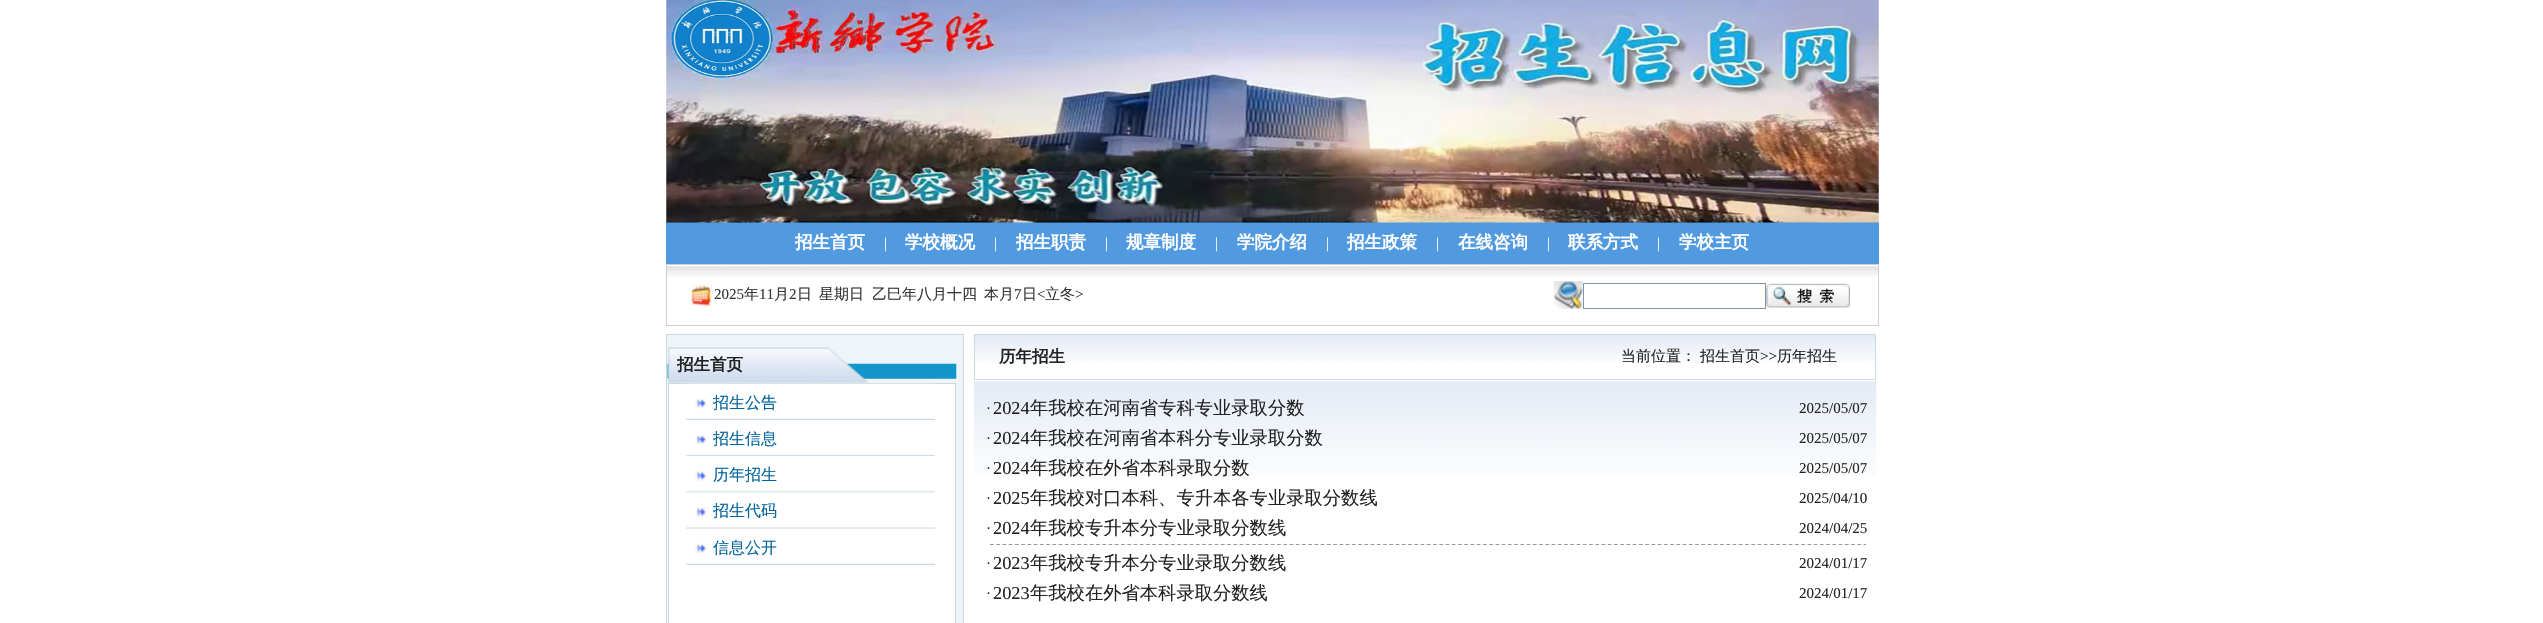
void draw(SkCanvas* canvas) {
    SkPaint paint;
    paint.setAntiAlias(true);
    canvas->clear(0xFFFFFFFF);
    paint.setColor(0xFF519ADF);
    canvas->drawRect(SkRect::MakeXYWH(666, 222, 1213, 42), paint);
    canvas->drawImageRect(SkImages::DeferredFromEncodedData(SkData::MakeFromFileName("img1.png")), SkRect::MakeXYWH(666, 0, 1213, 223), SkSamplingOptions());
    SkFont font1(fontMgr->matchFamilyStyle("WenQuanYi Zen Hei", SkFontStyle::Bold()), 17.5f);
    font1.setSubpixel(true);
    paint.setColor(0xFFFFFFFF);
    canvas->drawString("招生首页", 795, 248, font1, paint);
    SkFont font2(fontMgr->matchFamilyStyle("Liberation Serif", SkFontStyle::Normal()), 15);
    font2.setSubpixel(true);
    canvas->drawString("|", 884, 248, font2, paint);
    canvas->drawString("学校概况", 905, 248, font1, paint);
    canvas->drawString("|", 994, 248, font2, paint);
    canvas->drawString("招生职责", 1016, 248, font1, paint);
    canvas->drawString("|", 1105, 248, font2, paint);
    canvas->drawString("规章制度", 1126, 248, font1, paint);
    canvas->drawString("|", 1215, 248, font2, paint);
    canvas->drawString("学院介绍", 1237, 248, font1, paint);
    canvas->drawString("|", 1326, 248, font2, paint);
    canvas->drawString("招生政策", 1347, 248, font1, paint);
    canvas->drawString("|", 1436, 248, font2, paint);
    canvas->drawString("在线咨询", 1458, 248, font1, paint);
    canvas->drawString("|", 1547, 248, font2, paint);
    canvas->drawString("联系方式", 1568, 248, font1, paint);
    canvas->drawString("|", 1657, 248, font2, paint);
    canvas->drawString("学校主页", 1679, 248, font1, paint);
    canvas->drawImageRect(SkImages::DeferredFromEncodedData(SkData::MakeFromFileName("img2.png")), SkRect::MakeXYWH(667, 266, 1211, 11), SkSamplingOptions());
    paint.setStyle(SkPaint::kStroke_Style);
    paint.setStrokeWidth(1);
    paint.setColor(0xFFCFCFCF);
    canvas->drawRect(SkRect::MakeXYWH(666.5f, 264.5f, 1212, 61), paint);
    canvas->drawImageRect(SkImages::DeferredFromEncodedData(SkData::MakeFromFileName("img3.png")), SkRect::MakeXYWH(691, 285, 22, 22), SkSamplingOptions());
    paint.setStyle(SkPaint::kFill_Style);
    paint.setColor(0xFF343434);
    canvas->drawString("2025", 714, 299, font2, paint);
    SkFont font3(fontMgr->matchFamilyStyle("WenQuanYi Zen Hei", SkFontStyle(500, SkFontStyle::kNormal_Width, SkFontStyle::kUpright_Slant)), 15);
    font3.setSubpixel(true);
    canvas->drawString("年", 744, 299, font3, paint);
    canvas->drawString("11", 759, 299, font2, paint);
    canvas->drawString("月", 774, 299, font3, paint);
    canvas->drawString("2", 789, 299, font2, paint);
    canvas->drawString("日", 797, 299, font3, paint);
    canvas->drawString("星期日", 819, 299, font3, paint);
    canvas->drawString("乙巳年八月十四", 872, 299, font3, paint);
    canvas->drawString("本月", 984, 299, font3, paint);
    canvas->drawString("7", 1014, 299, font2, paint);
    canvas->drawString("日", 1022, 299, font3, paint);
    canvas->drawString("<", 1037, 299, font2, paint);
    canvas->drawString("立冬", 1045, 299, font3, paint);
    canvas->drawString(">", 1075, 299, font2, paint);
    canvas->drawImageRect(SkImages::DeferredFromEncodedData(SkData::MakeFromFileName("img4.png")), SkRect::MakeXYWH(1553, 281, 30, 28), SkSamplingOptions());
    paint.setStyle(SkPaint::kStroke_Style);
    paint.setColor(0xFF7C98B0);
    canvas->drawRect(SkRect::MakeXYWH(1583.5f, 283.5f, 182, 25), paint);
    canvas->drawImageRect(SkImages::DeferredFromEncodedData(SkData::MakeFromFileName("img5.png")), SkRect::MakeXYWH(1766, 283, 84, 25), SkSamplingOptions());
    paint.setStyle(SkPaint::kFill_Style);
    paint.setColor(0xFFEEF4F7);
    canvas->drawRect(SkRect::MakeXYWH(666.5f, 334.5f, 297, 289), paint);
    paint.setStyle(SkPaint::kStroke_Style);
    paint.setColor(0xFFC9D9E0);
    canvas->drawRect(SkRect::MakeXYWH(666.5f, 334.5f, 297, 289), paint);
    canvas->drawImageRect(SkImages::DeferredFromEncodedData(SkData::MakeFromFileName("img6.png")), SkRect::MakeXYWH(667, 347, 290, 36), SkSamplingOptions());
    SkFont font4(fontMgr->matchFamilyStyle("WenQuanYi Zen Hei", SkFontStyle::Bold()), 16.5f);
    font4.setSubpixel(true);
    paint.setStyle(SkPaint::kFill_Style);
    paint.setColor(0xFF222222);
    canvas->drawString("招生首页", 677, 370, font4, paint);
    paint.setColor(0xFFFFFFFF);
    canvas->drawRect(SkRect::MakeXYWH(668.5f, 383.5f, 287, 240), paint);
    paint.setStyle(SkPaint::kStroke_Style);
    paint.setColor(0xFFC9D9E0);
    canvas->drawRect(SkRect::MakeXYWH(668.5f, 383.5f, 287, 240), paint);
    canvas->drawImageRect(SkImages::DeferredFromEncodedData(SkData::MakeFromFileName("img7.png")), SkRect::MakeXYWH(686, 383, 249, 37), SkSamplingOptions());
    SkFont font5(fontMgr->matchFamilyStyle("WenQuanYi Zen Hei", SkFontStyle(500, SkFontStyle::kNormal_Width, SkFontStyle::kUpright_Slant)), 16);
    font5.setSubpixel(true);
    paint.setStyle(SkPaint::kFill_Style);
    paint.setColor(0xFF00629D);
    canvas->drawString("招生公告", 713, 408, font5, paint);
    canvas->drawImageRect(SkImages::DeferredFromEncodedData(SkData::MakeFromFileName("img8.png")), SkRect::MakeXYWH(686, 434, 249, 22), SkSamplingOptions());
    canvas->drawString("招生信息", 713, 444, font5, paint);
    canvas->drawImageRect(SkImages::DeferredFromEncodedData(SkData::MakeFromFileName("img9.png")), SkRect::MakeXYWH(686, 470, 249, 23), SkSamplingOptions());
    canvas->drawString("历年招生", 713, 480, font5, paint);
    canvas->drawImageRect(SkImages::DeferredFromEncodedData(SkData::MakeFromFileName("img10.png")), SkRect::MakeXYWH(686, 492, 249, 37), SkSamplingOptions());
    canvas->drawString("招生代码", 713, 516, font5, paint);
    canvas->drawImageRect(SkImages::DeferredFromEncodedData(SkData::MakeFromFileName("img11.png")), SkRect::MakeXYWH(686, 528, 249, 37), SkSamplingOptions());
    canvas->drawString("信息公开", 713, 553, font5, paint);
    canvas->drawImageRect(SkImages::DeferredFromEncodedData(SkData::MakeFromFileName("img12.png")), SkRect::MakeXYWH(973, 335, 904, 28), SkSamplingOptions());
    paint.setStyle(SkPaint::kStroke_Style);
    paint.setColor(0xFFCADAE1);
    canvas->drawRect(SkRect::MakeXYWH(974.5f, 334.5f, 901, 45), paint);
    paint.setStyle(SkPaint::kFill_Style);
    paint.setColor(0xFF222222);
    canvas->drawString("历年招生", 999, 362, font4, paint);
    canvas->drawString("当前位置：", 1621, 361, font3, paint);
    canvas->drawString("招生首页", 1700, 361, font3, paint);
    canvas->drawString(">>", 1760, 361, font2, paint);
    canvas->drawString("历年招生", 1777, 361, font3, paint);
    canvas->drawImageRect(SkImages::DeferredFromEncodedData(SkData::MakeFromFileName("img13.png")), SkRect::MakeXYWH(973, 381, 904, 95), SkSamplingOptions());
    canvas->drawString("·", 986, 413, font2, paint);
    SkFont font6(fontMgr->matchFamilyStyle("Liberation Serif", SkFontStyle::Normal()), 18.3f);
    font6.setSubpixel(true);
    canvas->drawString("2024", 993, 414, font6, paint);
    SkFont font7(fontMgr->matchFamilyStyle("WenQuanYi Zen Hei", SkFontStyle(500, SkFontStyle::kNormal_Width, SkFontStyle::kUpright_Slant)), 18.3f);
    font7.setSubpixel(true);
    canvas->drawString("年我校在河南省专科专业录取分数", 1030, 414, font7, paint);
    canvas->drawString("2025/05/07", 1799, 413, font2, paint);
    canvas->drawString("·", 986, 443, font2, paint);
    canvas->drawString("2024", 993, 444, font6, paint);
    canvas->drawString("年我校在河南省本科分专业录取分数", 1030, 444, font7, paint);
    canvas->drawString("2025/05/07", 1799, 443, font2, paint);
    canvas->drawString("·", 986, 473, font2, paint);
    canvas->drawString("2024", 993, 474, font6, paint);
    canvas->drawString("年我校在外省本科录取分数", 1030, 474, font7, paint);
    canvas->drawString("2025/05/07", 1799, 473, font2, paint);
    canvas->drawString("·", 986, 503, font2, paint);
    canvas->drawString("2025", 993, 504, font6, paint);
    canvas->drawString("年我校对口本科、专升本各专业录取分数线", 1030, 504, font7, paint);
    canvas->drawString("2025/04/10", 1799, 503, font2, paint);
    canvas->drawString("·", 986, 533, font2, paint);
    canvas->drawString("2024", 993, 534, font6, paint);
    canvas->drawString("年我校专升本分专业录取分数线", 1030, 534, font7, paint);
    canvas->drawString("2024/04/25", 1799, 533, font2, paint);
    paint.setStyle(SkPaint::kStroke_Style);
    paint.setStrokeWidth(1.2f);
    paint.setColor(0xFF999999);
    paint.setPathEffect(SkDashPathEffect::Make({{3.75f, 2.49f}}, 0));
    canvas->drawPath(SkPathBuilder().moveTo(990, 544.5f).lineTo(1866, 544.5f).detach(), paint);
    paint.setPathEffect(nullptr);
    paint.setStyle(SkPaint::kFill_Style);
    paint.setColor(0xFF222222);
    canvas->drawString("·", 986, 568, font2, paint);
    canvas->drawString("2023", 993, 569, font6, paint);
    canvas->drawString("年我校专升本分专业录取分数线", 1030, 569, font7, paint);
    canvas->drawString("2024/01/17", 1799, 568, font2, paint);
    canvas->drawString("·", 986, 598, font2, paint);
    canvas->drawString("2023", 993, 599, font6, paint);
    canvas->drawString("年我校在外省本科录取分数线", 1030, 599, font7, paint);
    canvas->drawString("2024/01/17", 1799, 598, font2, paint);
}
